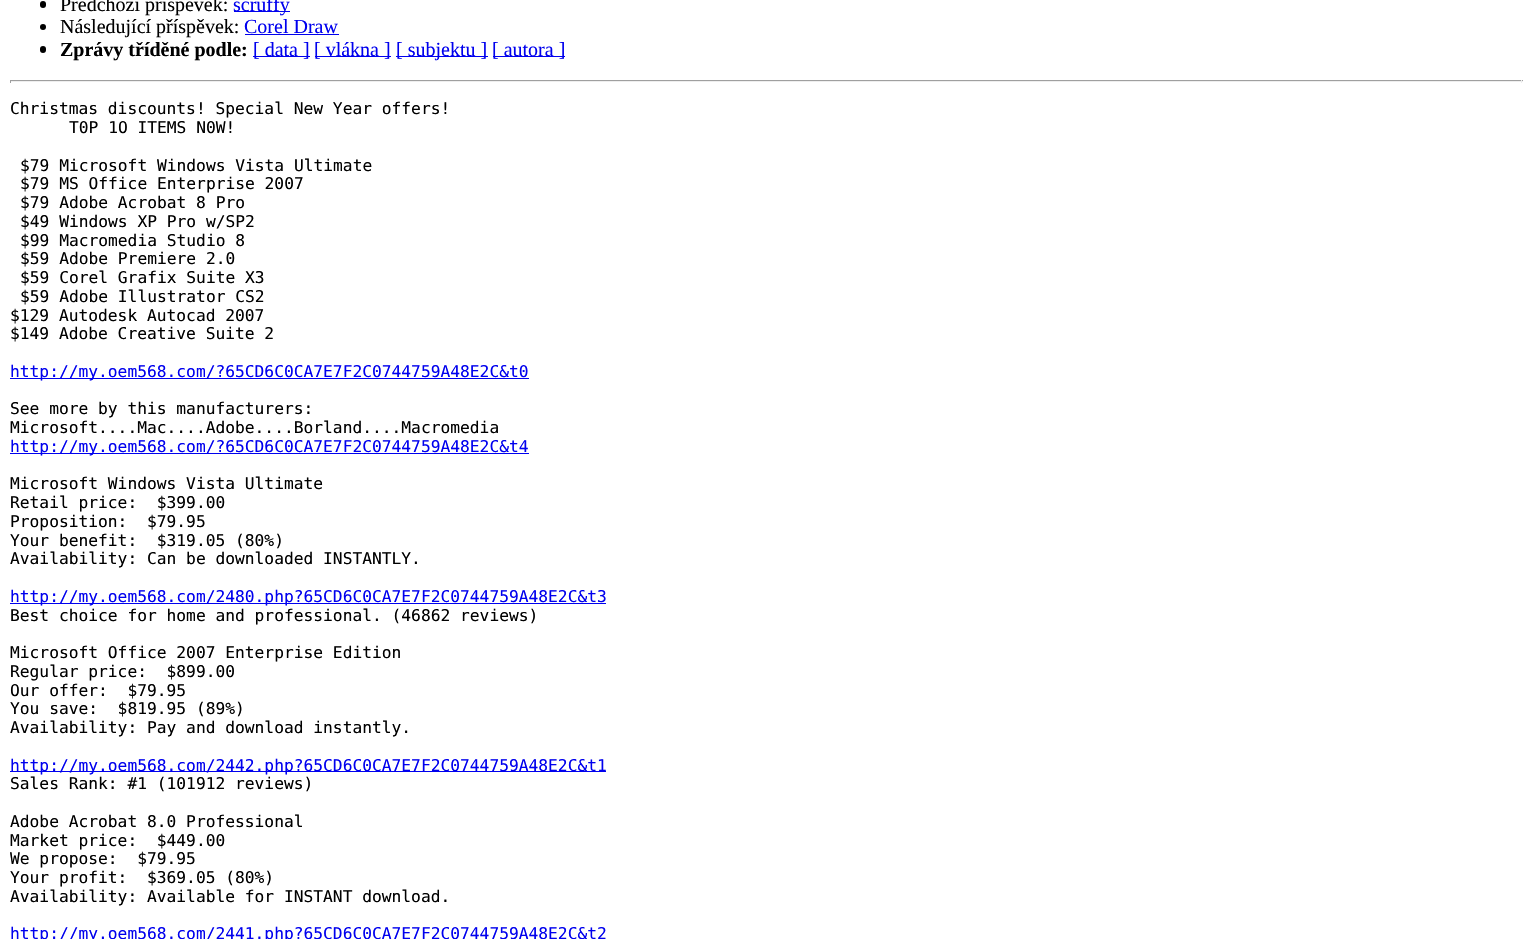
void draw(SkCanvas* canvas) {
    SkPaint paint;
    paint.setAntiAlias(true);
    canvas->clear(0xFFFFFFFF);
    paint.setColor(0xFF000000);
    canvas->drawRoundRect(SkRect::MakeXYWH(40, 1, 6, 7), 3, 3, paint);
    SkFont font1(fontMgr->matchFamilyStyle("Liberation Serif", SkFontStyle::Normal()), 20);
    font1.setSubpixel(true);
    canvas->drawString("Předchozí příspěvek:", 60, 11, font1, paint);
    paint.setColor(0xFF0000EE);
    canvas->drawRect(SkRect::MakeXYWH(234, 11, 56, 1), paint);
    canvas->drawString("scruffy", 233, 11, font1, paint);
    paint.setColor(0xFF000000);
    canvas->drawCircle(43, 27, 3, paint);
    canvas->drawString("Následující příspěvek:", 60, 33, font1, paint);
    paint.setColor(0xFF0000EE);
    canvas->drawString("Corel Draw", 244, 33, font1, paint);
    canvas->drawRect(SkRect::MakeXYWH(245, 34, 94, 1), paint);
    paint.setColor(0xFF000000);
    canvas->drawRoundRect(SkRect::MakeXYWH(40, 46, 6, 7), 3, 3, paint);
    SkFont font2(fontMgr->matchFamilyStyle("Liberation Serif", SkFontStyle::Bold()), 20);
    font2.setSubpixel(true);
    canvas->drawString("Zprávy tříděné podle:", 60, 56, font2, paint);
    paint.setColor(0xFF0000EE);
    canvas->drawRect(SkRect::MakeXYWH(253, 56, 57, 1), paint);
    canvas->drawString("[ data ]", 253, 56, font1, paint);
    canvas->drawRect(SkRect::MakeXYWH(315, 56, 76, 1), paint);
    canvas->drawString("[ vlákna ]", 314, 56, font1, paint);
    canvas->drawRect(SkRect::MakeXYWH(396, 56, 92, 1), paint);
    canvas->drawString("[ subjektu ]", 396, 56, font1, paint);
    canvas->drawRect(SkRect::MakeXYWH(493, 56, 72, 1), paint);
    canvas->drawString("[ autora ]", 492, 56, font1, paint);
    paint.setColor(0xFF9F9F9F);
    canvas->drawRect(SkRect::MakeXYWH(10, 80, 1513, 1), paint);
    paint.setColor(0xFFEEEEEE);
    canvas->drawRect(SkRect::MakeXYWH(1521, 80, 1, 3), paint);
    canvas->drawRect(SkRect::MakeXYWH(10, 81, 1513, 1), paint);
    paint.setColor(0xFF9F9F9F);
    canvas->drawRect(SkRect::MakeXYWH(10, 80, 1, 3), paint);
    SkFont font3(fontMgr->matchFamilyStyle("DejaVu Sans Mono", SkFontStyle::Normal()), 16.25f);
    font3.setSubpixel(true);
    paint.setColor(0xFF000000);
    canvas->drawString("Christmas discounts! Special New Year offers!", 10, 114, font3, paint);
    canvas->drawString("T0P 1O ITEMS N0W!", 69, 133, font3, paint);
    canvas->drawString("$79 Microsoft Windows Vista Ultimate", 20, 171, font3, paint);
    canvas->drawString("$79 MS Office Enterprise 2007", 20, 189, font3, paint);
    canvas->drawString("$79 Adobe Acrobat 8 Pro", 20, 208, font3, paint);
    canvas->drawString("$49 Windows XP Pro w/SP2", 20, 227, font3, paint);
    canvas->drawString("$99 Macromedia Studio 8", 20, 246, font3, paint);
    canvas->drawString("$59 Adobe Premiere 2.0", 20, 264, font3, paint);
    canvas->drawString("$59 Corel Grafix Suite X3", 20, 283, font3, paint);
    canvas->drawString("$59 Adobe Illustrator CS2", 20, 302, font3, paint);
    canvas->drawString("$129 Autodesk Autocad 2007", 10, 321, font3, paint);
    canvas->drawString("$149 Adobe Creative Suite 2", 10, 339, font3, paint);
    paint.setColor(0xFF0000EE);
    canvas->drawRect(SkRect::MakeXYWH(10, 378, 519, 1), paint);
    canvas->drawString("http://my.oem568.com/?65CD6C0CA7E7F2C0744759A48E2C&t0", 10, 377, font3, paint);
    paint.setColor(0xFF000000);
    canvas->drawString("See more by this manufacturers:", 10, 414, font3, paint);
    canvas->drawString("Microsoft....Mac....Adobe....Borland....Macromedia", 10, 433, font3, paint);
    paint.setColor(0xFF0000EE);
    canvas->drawRect(SkRect::MakeXYWH(10, 453, 519, 1), paint);
    canvas->drawString("http://my.oem568.com/?65CD6C0CA7E7F2C0744759A48E2C&t4", 10, 452, font3, paint);
    paint.setColor(0xFF000000);
    canvas->drawString("Microsoft Windows Vista Ultimate", 10, 489, font3, paint);
    canvas->drawString("Retail price:  $399.00", 10, 508, font3, paint);
    canvas->drawString("Proposition:  $79.95", 10, 527, font3, paint);
    canvas->drawString("Your benefit:  $319.05 (80%)", 10, 546, font3, paint);
    canvas->drawString("Availability: Can be downloaded INSTANTLY.", 10, 564, font3, paint);
    paint.setColor(0xFF0000EE);
    canvas->drawRect(SkRect::MakeXYWH(10, 603, 596, 1), paint);
    canvas->drawString("http://my.oem568.com/2480.php?65CD6C0CA7E7F2C0744759A48E2C&t3", 10, 602, font3, paint);
    paint.setColor(0xFF000000);
    canvas->drawString("Best choice for home and professional. (46862 reviews)", 10, 621, font3, paint);
    canvas->drawString("Microsoft Office 2007 Enterprise Edition", 10, 658, font3, paint);
    canvas->drawString("Regular price:  $899.00", 10, 677, font3, paint);
    canvas->drawString("Our offer:  $79.95", 10, 696, font3, paint);
    canvas->drawString("You save:  $819.95 (89%)", 10, 714, font3, paint);
    canvas->drawString("Availability: Pay and download instantly.", 10, 733, font3, paint);
    paint.setColor(0xFF0000EE);
    canvas->drawRect(SkRect::MakeXYWH(10, 771, 596, 1), paint);
    canvas->drawString("http://my.oem568.com/2442.php?65CD6C0CA7E7F2C0744759A48E2C&t1", 10, 771, font3, paint);
    paint.setColor(0xFF000000);
    canvas->drawString("Sales Rank: #1 (101912 reviews)", 10, 789, font3, paint);
    canvas->drawString("Adobe Acrobat 8.0 Professional", 10, 827, font3, paint);
    canvas->drawString("Market price:  $449.00", 10, 846, font3, paint);
    canvas->drawString("We propose:  $79.95", 10, 864, font3, paint);
    canvas->drawString("Your profit:  $369.05 (80%)", 10, 883, font3, paint);
    canvas->drawString("Availability: Available for INSTANT download.", 10, 902, font3, paint);
    paint.setColor(0xFF0000EE);
    canvas->drawString("http://my.oem568.com/2441.php?65CD6C0CA7E7F2C0744759A48E2C&t2", 10, 939, font3, paint);
}
